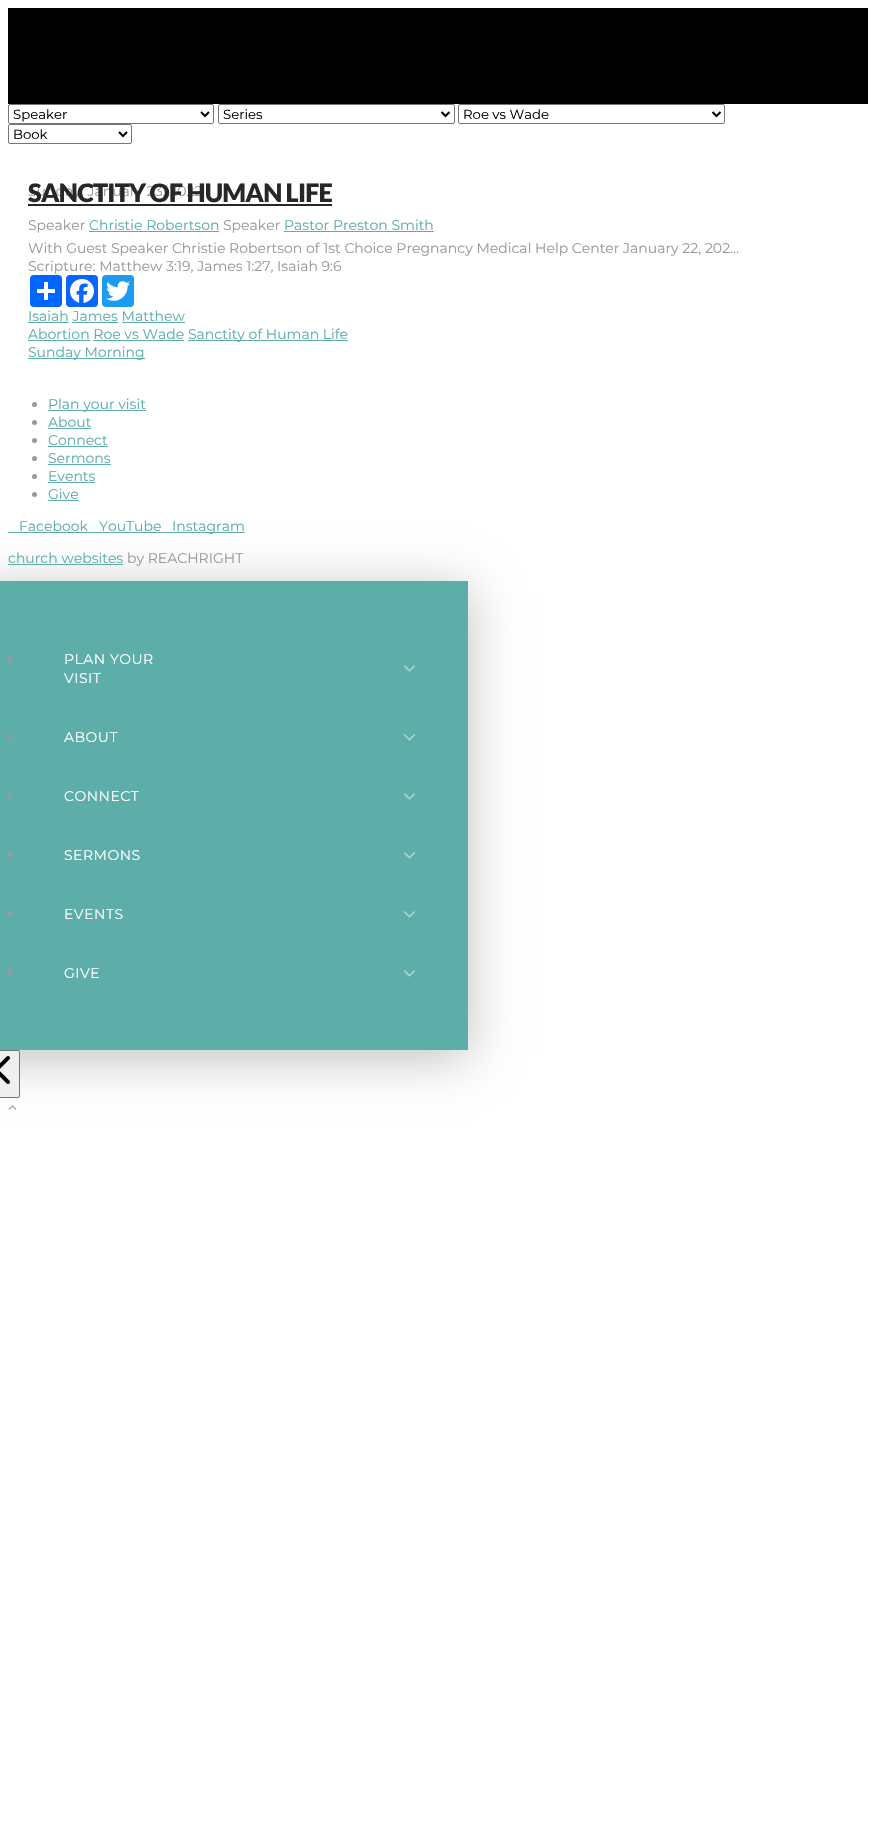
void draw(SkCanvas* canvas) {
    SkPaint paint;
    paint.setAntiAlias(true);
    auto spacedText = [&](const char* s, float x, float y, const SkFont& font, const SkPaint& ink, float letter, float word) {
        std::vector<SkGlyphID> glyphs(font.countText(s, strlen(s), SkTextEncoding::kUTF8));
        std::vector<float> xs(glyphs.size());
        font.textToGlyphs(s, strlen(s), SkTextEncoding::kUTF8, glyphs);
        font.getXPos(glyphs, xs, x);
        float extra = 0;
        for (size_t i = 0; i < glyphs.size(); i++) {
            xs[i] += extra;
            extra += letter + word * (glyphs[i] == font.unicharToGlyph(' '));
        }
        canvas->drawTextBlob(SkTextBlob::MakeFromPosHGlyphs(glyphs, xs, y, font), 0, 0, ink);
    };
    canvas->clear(0xFFFFFFFF);
    paint.setColor(0xFF000000);
    canvas->drawRect(SkRect::MakeXYWH(8, 8, 860, 96), paint);
    paint.setStyle(SkPaint::kStroke_Style);
    paint.setStrokeWidth(1);
    paint.setColor(0xFF767676);
    canvas->drawRoundRect(SkRect::MakeXYWH(8.5f, 104.5f, 205, 19), 1.5f, 1.5f, paint);
    paint.setStrokeWidth(2);
    paint.setColor(0xFF000000);
    canvas->drawPath(SkPathBuilder().moveTo(201, 112).lineTo(205, 116).lineTo(209, 112).detach(), paint);
    SkFont font1(fontMgr->matchFamilyStyle("Montserrat", SkFontStyle::Normal()), 13.25f);
    font1.setSubpixel(true);
    paint.setStyle(SkPaint::kFill_Style);
    canvas->drawString("Speaker", 13, 119, font1, paint);
    paint.setStyle(SkPaint::kStroke_Style);
    paint.setStrokeWidth(1);
    paint.setColor(0xFF767676);
    canvas->drawRoundRect(SkRect::MakeXYWH(218.5f, 104.5f, 236, 19), 1.5f, 1.5f, paint);
    paint.setStrokeWidth(2);
    paint.setColor(0xFF000000);
    canvas->drawPath(SkPathBuilder().moveTo(441.5f, 112).lineTo(445.5f, 116).lineTo(449.5f, 112).detach(), paint);
    paint.setStyle(SkPaint::kFill_Style);
    canvas->drawString("Series", 223, 119, font1, paint);
    paint.setStyle(SkPaint::kStroke_Style);
    paint.setStrokeWidth(1);
    paint.setColor(0xFF767676);
    canvas->drawRoundRect(SkRect::MakeXYWH(458.5f, 104.5f, 266, 19), 1.5f, 1.5f, paint);
    paint.setStrokeWidth(2);
    paint.setColor(0xFF000000);
    canvas->drawPath(SkPathBuilder().moveTo(712.5f, 112).lineTo(716.5f, 116).lineTo(720.5f, 112).detach(), paint);
    paint.setStyle(SkPaint::kFill_Style);
    canvas->drawString("Roe vs Wade", 463, 119, font1, paint);
    paint.setStyle(SkPaint::kStroke_Style);
    paint.setStrokeWidth(1);
    paint.setColor(0xFF767676);
    canvas->drawRoundRect(SkRect::MakeXYWH(8.5f, 124.5f, 123, 19), 1.5f, 1.5f, paint);
    paint.setStrokeWidth(2);
    paint.setColor(0xFF000000);
    canvas->drawPath(SkPathBuilder().moveTo(119, 132).lineTo(123, 136).lineTo(127, 132).detach(), paint);
    paint.setStyle(SkPaint::kFill_Style);
    canvas->drawString("Book", 13, 139, font1, paint);
    SkFont font2(fontMgr->matchFamilyStyle("Montserrat", SkFontStyle::Normal()), 14);
    font2.setSubpixel(true);
    paint.setColor(0xFF999999);
    canvas->drawString("Sunday, January 23, 2022", 28, 196, font2, paint);
    SkFont font3(fontMgr->matchFamilyStyle("Lato", SkFontStyle(900, SkFontStyle::kNormal_Width, SkFontStyle::kUpright_Slant)), 25.25f);
    font3.setSubpixel(true);
    paint.setColor(0xFF272727);
    spacedText("SANCTITY OF HUMAN LIFE", 28, 202, font3, paint, -0.75f, 0);
    canvas->drawRect(SkRect::MakeXYWH(28, 204, 304, 2), paint);
    paint.setColor(0xFF999999);
    canvas->drawString("Speaker", 28, 230, font2, paint);
    paint.setColor(0xFF5DADA8);
    canvas->drawString("Christie Robertson", 89, 230, font2, paint);
    canvas->drawRect(SkRect::MakeXYWH(89, 231, 130, 1), paint);
    paint.setColor(0xFF999999);
    canvas->drawString("Speaker", 223, 230, font2, paint);
    paint.setColor(0xFF5DADA8);
    canvas->drawString("Pastor Preston Smith", 284, 230, font2, paint);
    canvas->drawRect(SkRect::MakeXYWH(284, 231, 150, 1), paint);
    paint.setColor(0xFF999999);
    canvas->drawString("With Guest Speaker Christie Robertson of 1st Choice Pregnancy Medical Help Center January 22, 202...", 28, 253, font2, paint);
    canvas->drawString("Scripture: Matthew 3:19, James 1:27, Isaiah 9:6", 28, 271, font2, paint);
    paint.setColor(0xFF0166FF);
    canvas->drawRoundRect(SkRect::MakeXYWH(30, 275, 32, 32), 4, 4, paint);
    paint.setColor(0xFFFFFFFF);
    canvas->drawRect(SkRect::MakeXYWH(44, 282, 4, 18), paint);
    canvas->drawRect(SkRect::MakeXYWH(37, 289, 18, 4), paint);
    paint.setColor(0xFF0866FF);
    canvas->drawRoundRect(SkRect::MakeXYWH(66, 275, 32, 32), 4, 4, paint);
    canvas->drawImageRect(SkImages::DeferredFromEncodedData(SkData::MakeFromFileName("img1.png")), SkRect::MakeXYWH(70, 279, 24, 24), SkSamplingOptions());
    paint.setColor(0xFF1D9BF0);
    canvas->drawRoundRect(SkRect::MakeXYWH(102, 275, 32, 32), 4, 4, paint);
    canvas->drawImageRect(SkImages::DeferredFromEncodedData(SkData::MakeFromFileName("img2.png")), SkRect::MakeXYWH(106, 281, 24, 20), SkSamplingOptions());
    paint.setColor(0xFF5DADA8);
    canvas->drawString("Isaiah James Matthew", 28, 321, font2, paint);
    canvas->drawRect(SkRect::MakeXYWH(28, 322, 41, 1), paint);
    canvas->drawRect(SkRect::MakeXYWH(72, 322, 46, 1), paint);
    canvas->drawRect(SkRect::MakeXYWH(122, 322, 63, 1), paint);
    canvas->drawString("Abortion Roe vs Wade", 28, 339, font2, paint);
    canvas->drawRect(SkRect::MakeXYWH(28, 340, 62, 1), paint);
    canvas->drawRect(SkRect::MakeXYWH(188, 340, 160, 1), paint);
    canvas->drawString("Sanctity of Human Life", 188, 339, font2, paint);
    canvas->drawRect(SkRect::MakeXYWH(93, 340, 91, 1), paint);
    canvas->drawRect(SkRect::MakeXYWH(28, 358, 117, 1), paint);
    canvas->drawString("Sunday Morning", 28, 357, font2, paint);
    paint.setColor(0xFF999999);
    canvas->drawCircle(34.5f, 404.5f, 2.5f, paint);
    paint.setColor(0xFF5DADA8);
    canvas->drawRect(SkRect::MakeXYWH(48, 410, 98, 1), paint);
    canvas->drawString("Plan your visit", 48, 409, font2, paint);
    paint.setColor(0xFF999999);
    canvas->drawCircle(34.5f, 422.5f, 2.5f, paint);
    paint.setColor(0xFF5DADA8);
    canvas->drawString("About", 48, 427, font2, paint);
    canvas->drawRect(SkRect::MakeXYWH(48, 428, 43, 1), paint);
    paint.setColor(0xFF999999);
    canvas->drawCircle(34.5f, 440.5f, 2.5f, paint);
    paint.setColor(0xFF5DADA8);
    canvas->drawString("Connect", 48, 445, font2, paint);
    canvas->drawRect(SkRect::MakeXYWH(48, 446, 60, 1), paint);
    paint.setColor(0xFF999999);
    canvas->drawCircle(34.5f, 458.5f, 2.5f, paint);
    paint.setColor(0xFF5DADA8);
    canvas->drawString("Sermons", 48, 463, font2, paint);
    canvas->drawRect(SkRect::MakeXYWH(48, 464, 63, 1), paint);
    paint.setColor(0xFF999999);
    canvas->drawCircle(34.5f, 476.5f, 2.5f, paint);
    paint.setColor(0xFF5DADA8);
    canvas->drawString("Events", 48, 481, font2, paint);
    canvas->drawRect(SkRect::MakeXYWH(48, 482, 47, 1), paint);
    paint.setColor(0xFF999999);
    canvas->drawCircle(34.5f, 494.5f, 2.5f, paint);
    paint.setColor(0xFF5DADA8);
    canvas->drawString("Give", 48, 499, font2, paint);
    canvas->drawRect(SkRect::MakeXYWH(48, 500, 31, 1), paint);
    paint.setColor(0x40000000);
    paint.setMaskFilter(SkMaskFilter::MakeBlur(kNormal_SkBlurStyle, 24));
    canvas->drawRect(SkRect::MakeXYWH(-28, 589, 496, 469), paint);
    paint.setMaskFilter(nullptr);
    paint.setColor(0xFF5DADA8);
    canvas->drawString("Facebook", 19, 531, font2, paint);
    canvas->drawRect(SkRect::MakeXYWH(8, 532, 237, 1), paint);
    canvas->drawString("YouTube", 99, 531, font2, paint);
    canvas->drawString("Instagram", 172, 531, font2, paint);
    canvas->drawString("church websites", 8, 563, font2, paint);
    canvas->drawRect(SkRect::MakeXYWH(8, 564, 115, 1), paint);
    paint.setColor(0xFF999999);
    canvas->drawString("by REACHRIGHT", 127, 563, font2, paint);
    paint.setColor(0xFF5DADA8);
    canvas->drawRect(SkRect::MakeXYWH(0, 581, 468, 469), paint);
    paint.setColor(0xFF999999);
    canvas->drawCircle(9.5f, 658.5f, 2.5f, paint);
    paint.setColor(0xFFFFFFFF);
    spacedText("PLAN YOUR", 64, 664, font2, paint, 0.5f, 0);
    spacedText("VISIT", 64, 683, font2, paint, 0.5f, 0);
    canvas->drawImageRect(SkImages::DeferredFromEncodedData(SkData::MakeFromFileName("img3.png")), SkRect::MakeXYWH(404, 665, 11, 7), SkSamplingOptions());
    paint.setColor(0xFF999999);
    canvas->drawCircle(9.5f, 736.5f, 2.5f, paint);
    paint.setColor(0xFFFFFFFF);
    spacedText("ABOUT", 64, 742, font2, paint, 0.5f, 0);
    canvas->drawImageRect(SkImages::DeferredFromEncodedData(SkData::MakeFromFileName("img3.png")), SkRect::MakeXYWH(404, 734, 11, 7), SkSamplingOptions());
    paint.setColor(0xFF999999);
    canvas->drawCircle(9.5f, 795.5f, 2.5f, paint);
    paint.setColor(0xFFFFFFFF);
    spacedText("CONNECT", 64, 801, font2, paint, 0.5f, 0);
    canvas->drawImageRect(SkImages::DeferredFromEncodedData(SkData::MakeFromFileName("img3.png")), SkRect::MakeXYWH(404, 793, 11, 7), SkSamplingOptions());
    paint.setColor(0xFF999999);
    canvas->drawCircle(9.5f, 854.5f, 2.5f, paint);
    paint.setColor(0xFFFFFFFF);
    spacedText("SERMONS", 64, 860, font2, paint, 0.5f, 0);
    canvas->drawImageRect(SkImages::DeferredFromEncodedData(SkData::MakeFromFileName("img3.png")), SkRect::MakeXYWH(404, 852, 11, 7), SkSamplingOptions());
    paint.setColor(0xFF999999);
    canvas->drawCircle(9.5f, 913.5f, 2.5f, paint);
    paint.setColor(0xFFFFFFFF);
    spacedText("EVENTS", 64, 919, font2, paint, 0.5f, 0);
    canvas->drawImageRect(SkImages::DeferredFromEncodedData(SkData::MakeFromFileName("img3.png")), SkRect::MakeXYWH(404, 911, 11, 7), SkSamplingOptions());
    paint.setColor(0xFF999999);
    canvas->drawCircle(9.5f, 972.5f, 2.5f, paint);
    paint.setColor(0xFFFFFFFF);
    spacedText("GIVE", 64, 978, font2, paint, 0.5f, 0);
    canvas->drawImageRect(SkImages::DeferredFromEncodedData(SkData::MakeFromFileName("img3.png")), SkRect::MakeXYWH(404, 970, 11, 7), SkSamplingOptions());
    paint.setColor(0xFFEFEFEF);
    canvas->drawRoundRect(SkRect::MakeXYWH(-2.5f, 1050.5f, 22, 47), 1.5f, 1.5f, paint);
    paint.setStyle(SkPaint::kStroke_Style);
    paint.setStrokeWidth(1);
    paint.setColor(0xFF767676);
    canvas->drawRoundRect(SkRect::MakeXYWH(-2.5f, 1050.5f, 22, 47), 1.5f, 1.5f, paint);
    canvas->drawImageRect(SkImages::DeferredFromEncodedData(SkData::MakeFromFileName("img4.png")), SkRect::MakeXYWH(0, 1056, 10, 28), SkSamplingOptions());
    canvas->drawImageRect(SkImages::DeferredFromEncodedData(SkData::MakeFromFileName("img5.png")), SkRect::MakeXYWH(8, 1105, 9, 5), SkSamplingOptions());
}
